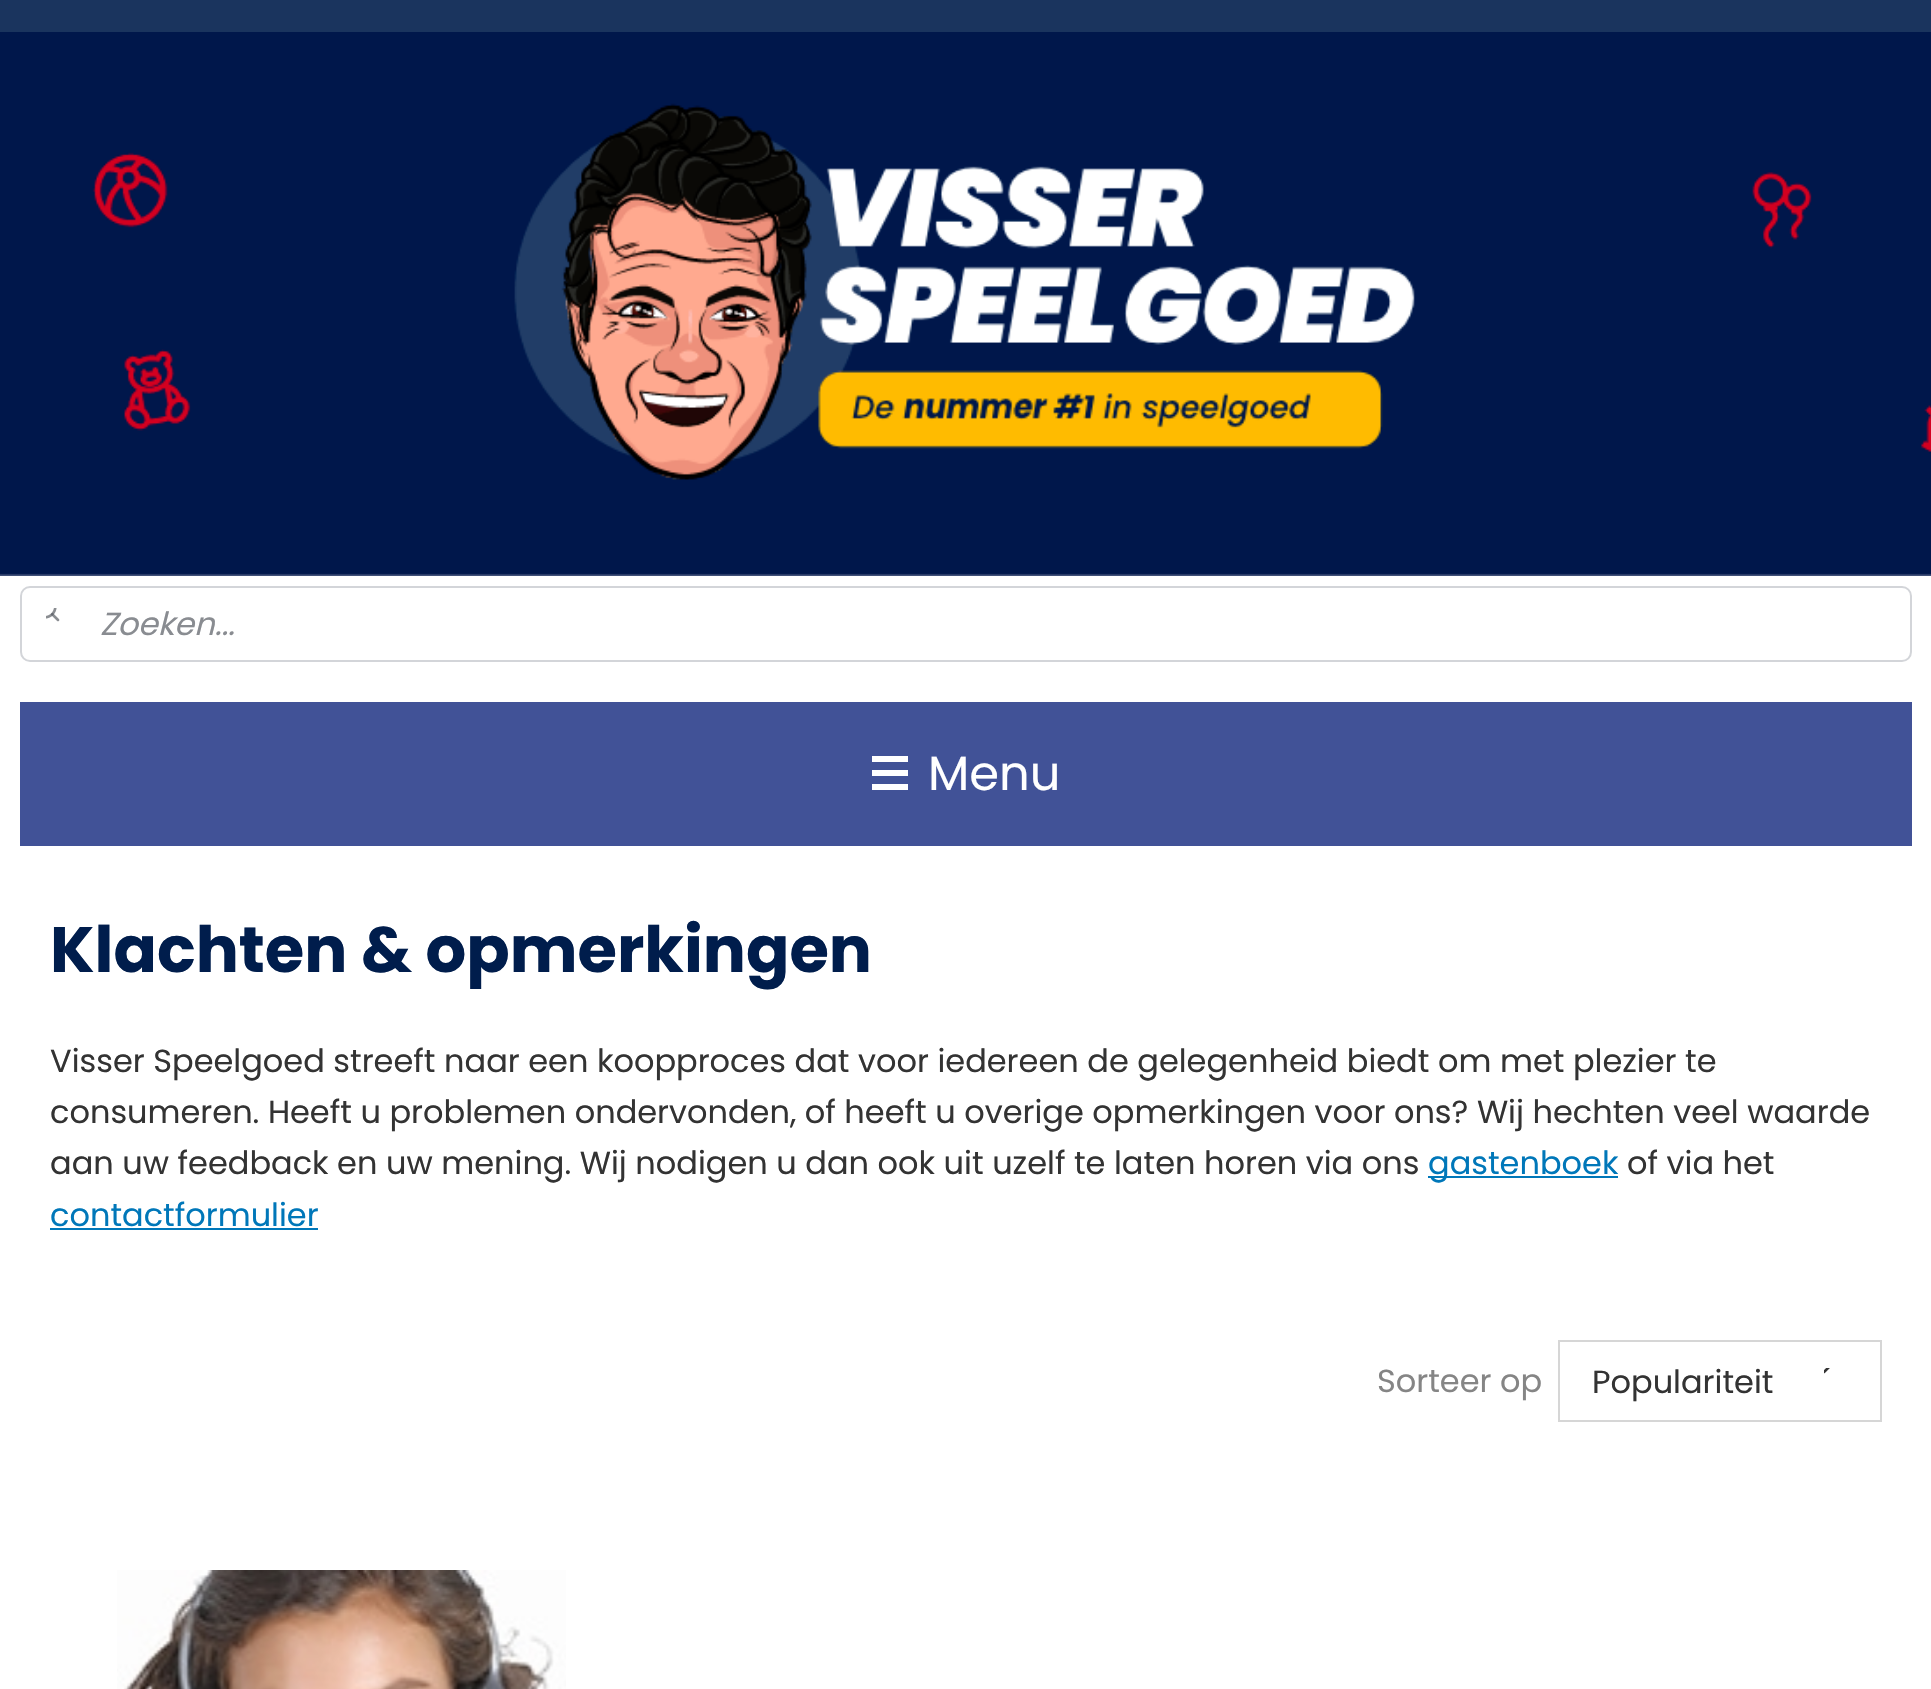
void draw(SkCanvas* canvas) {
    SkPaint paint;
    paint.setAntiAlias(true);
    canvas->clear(0xFFFFFFFF);
    paint.setColor(0xFF1A345E);
    canvas->drawRect(SkRect::MakeXYWH(0, 0, 1931, 32), paint);
    canvas->drawImageRect(SkImages::DeferredFromEncodedData(SkData::MakeFromFileName("img1.png")), SkRect::MakeXYWH(0, 32, 1931, 544), SkSamplingOptions());
    paint.setStyle(SkPaint::kStroke_Style);
    paint.setStrokeWidth(2);
    paint.setColor(0xFFD3D5D9);
    canvas->drawRoundRect(SkRect::MakeXYWH(21, 587, 1890, 74), 9, 9, paint);
    canvas->drawImageRect(SkImages::DeferredFromEncodedData(SkData::MakeFromFileName("img2.png")), SkRect::MakeXYWH(46, 608, 14, 14), SkSamplingOptions());
    SkFont font1(fontMgr->matchFamilyStyle("Poppins", SkFontStyle::Italic()), 32);
    font1.setSubpixel(true);
    paint.setStyle(SkPaint::kFill_Style);
    paint.setColor(0xFF898C91);
    canvas->drawString("Zoeken...", 100, 635, font1, paint);
    paint.setColor(0xFF415297);
    canvas->drawRect(SkRect::MakeXYWH(20, 702, 1892, 144), paint);
    paint.setColor(0xFFFFFFFF);
    canvas->drawRect(SkRect::MakeXYWH(872, 770, 36, 6), paint);
    canvas->drawRect(SkRect::MakeXYWH(872, 756, 36, 6), paint);
    canvas->drawRect(SkRect::MakeXYWH(872, 784, 36, 6), paint);
    SkFont font2(fontMgr->matchFamilyStyle("Poppins", SkFontStyle::Normal()), 48);
    font2.setSubpixel(true);
    canvas->drawString("Menu", 928, 790, font2, paint);
    SkFont font3(fontMgr->matchFamilyStyle("Poppins", SkFontStyle::Bold()), 64);
    font3.setSubpixel(true);
    paint.setColor(0xFF001D4C);
    canvas->drawString("Klachten & opmerkingen", 50, 972, font3, paint);
    SkFont font4(fontMgr->matchFamilyStyle("Poppins", SkFontStyle::Normal()), 32);
    font4.setSubpixel(true);
    paint.setColor(0xFF333333);
    canvas->drawString("Visser Speelgoed streeft naar een koopproces dat voor iedereen de gelegenheid biedt om met plezier te", 50, 1072, font4, paint);
    canvas->drawString("consumeren. Heeft u problemen ondervonden, of heeft u overige opmerkingen voor ons? Wij hechten veel waarde", 50, 1123, font4, paint);
    canvas->drawString("aan uw feedback en uw mening. Wij nodigen u dan ook uit uzelf te laten horen via ons", 50, 1174, font4, paint);
    paint.setColor(0xFF0077B9);
    canvas->drawRect(SkRect::MakeXYWH(1428, 1176, 190, 2), paint);
    canvas->drawString("gastenboek", 1428, 1174, font4, paint);
    paint.setColor(0xFF333333);
    canvas->drawString("of via het", 1627, 1174, font4, paint);
    paint.setColor(0xFF0077B9);
    canvas->drawString("contactformulier", 50, 1226, font4, paint);
    canvas->drawRect(SkRect::MakeXYWH(50, 1228, 268, 2), paint);
    paint.setColor(0xFF858585);
    canvas->drawString("Sorteer op", 1377, 1392, font4, paint);
    paint.setStyle(SkPaint::kStroke_Style);
    paint.setColor(0xFFD6D6D6);
    canvas->drawRect(SkRect::MakeXYWH(1559, 1341, 322, 80), paint);
    paint.setStyle(SkPaint::kFill_Style);
    paint.setColor(0xFF333333);
    canvas->drawString("Populariteit", 1592, 1393, font4, paint);
    canvas->drawImageRect(SkImages::DeferredFromEncodedData(SkData::MakeFromFileName("img3.png")), SkRect::MakeXYWH(1824, 1368, 6, 6), SkSamplingOptions());
    canvas->drawImageRect(SkImages::DeferredFromEncodedData(SkData::MakeFromFileName("img4.png")), SkRect::MakeXYWH(117, 1570, 449, 119), SkSamplingOptions());
}
